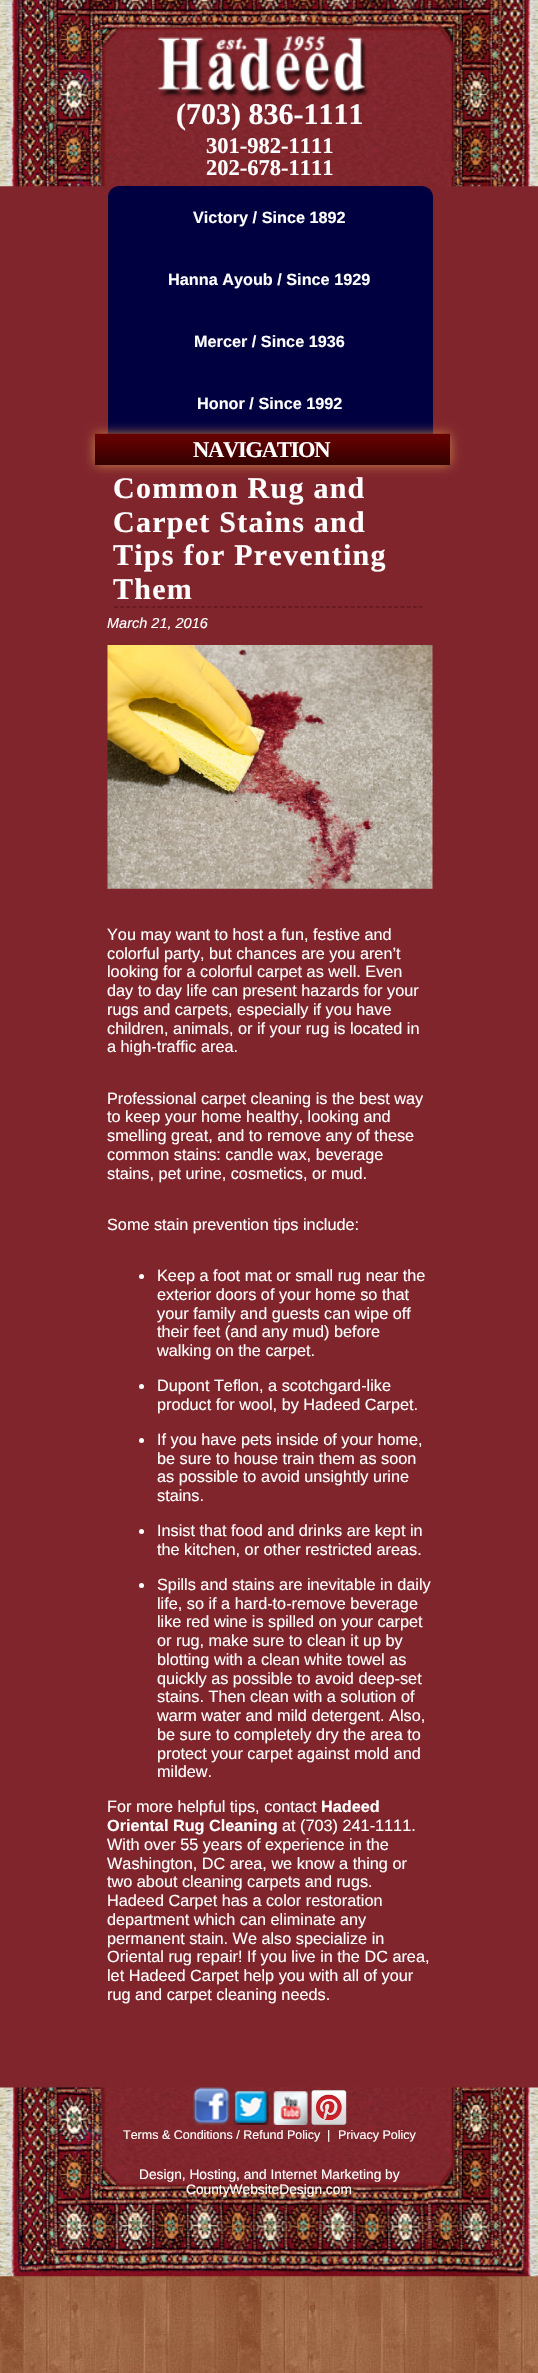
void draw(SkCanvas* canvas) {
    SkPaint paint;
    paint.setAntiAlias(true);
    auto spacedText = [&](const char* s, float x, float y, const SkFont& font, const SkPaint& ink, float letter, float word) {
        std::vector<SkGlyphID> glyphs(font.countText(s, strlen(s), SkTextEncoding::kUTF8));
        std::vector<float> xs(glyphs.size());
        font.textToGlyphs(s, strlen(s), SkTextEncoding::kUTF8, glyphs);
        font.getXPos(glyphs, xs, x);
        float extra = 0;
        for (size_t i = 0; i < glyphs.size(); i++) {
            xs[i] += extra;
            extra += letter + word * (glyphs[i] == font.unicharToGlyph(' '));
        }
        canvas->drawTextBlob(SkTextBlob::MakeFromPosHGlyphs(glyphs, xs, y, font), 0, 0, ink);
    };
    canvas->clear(0xFFFFFFFF);
    canvas->drawImageRect(SkImages::DeferredFromEncodedData(SkData::MakeFromFileName("img1.png")), SkRect::MakeXYWH(0, 2276, 538, 97), SkSamplingOptions());
    paint.setColor(0xFF80252C);
    canvas->drawRect(SkRect::MakeXYWH(0, 186, 538, 1902), paint);
    canvas->drawImageRect(SkImages::DeferredFromEncodedData(SkData::MakeFromFileName("img2.png")), SkRect::MakeXYWH(0, 0, 538, 187), SkSamplingOptions());
    SkFont font1(fontMgr->matchFamilyStyle("Liberation Serif", SkFontStyle::Bold()), 30);
    font1.setSubpixel(true);
    paint.setColor(0xFFFFFFFF);
    canvas->drawString("(703) 836-1111", 176, 124, font1, paint);
    SkFont font2(fontMgr->matchFamilyStyle("Liberation Serif", SkFontStyle::Bold()), 22.5f);
    font2.setSubpixel(true);
    canvas->drawString("301-982-1111", 206, 153, font2, paint);
    canvas->drawString("202-678-1111", 206, 175, font2, paint);
    paint.setColor(0xFF000040);
    canvas->drawPath(SkPathBuilder().moveTo(119, 186).lineTo(422, 186).cubicTo(428, 186, 433, 191, 433, 197).lineTo(433, 434).lineTo(108, 434).lineTo(108, 197).cubicTo(108, 191, 113, 186, 119, 186).close().detach(), paint);
    SkFont font3(fontMgr->matchFamilyStyle("Liberation Sans", SkFontStyle::Bold()), 16.25f);
    font3.setSubpixel(true);
    paint.setColor(0xFFFFFFFF);
    canvas->drawString("Victory / Since 1892", 193, 223, font3, paint);
    canvas->drawString("Hanna Ayoub / Since 1929", 168, 285, font3, paint);
    canvas->drawString("Mercer / Since 1936", 194, 347, font3, paint);
    canvas->drawString("Honor / Since 1992", 197, 409, font3, paint);
    paint.setColor(0xFFC98446);
    paint.setMaskFilter(SkMaskFilter::MakeBlur(kNormal_SkBlurStyle, 6));
    canvas->drawRect(SkRect::MakeXYWH(95, 434, 355, 31), paint);
    paint.setMaskFilter(nullptr);
    canvas->drawImageRect(SkImages::DeferredFromEncodedData(SkData::MakeFromFileName("img3.png")), SkRect::MakeXYWH(95, 433, 355, 32), SkSamplingOptions());
    paint.setColor(0xFFFFFFFF);
    spacedText("NAVIGATION", 193, 457, font2, paint, -1.25f, 0);
    paint.setStyle(SkPaint::kStroke_Style);
    paint.setStrokeWidth(1.2f);
    paint.setColor(0xFF500E13);
    paint.setPathEffect(SkDashPathEffect::Make({{3.75f, 2.48f}}, 0));
    canvas->drawPath(SkPathBuilder().moveTo(114, 607).lineTo(422.5f, 607).detach(), paint);
    paint.setPathEffect(nullptr);
    paint.setStyle(SkPaint::kFill_Style);
    paint.setColor(0xFFFFFFFF);
    spacedText("Common Rug and", 113, 498, font1, paint, 1.25f, 0);
    spacedText("Carpet Stains and", 113, 532, font1, paint, 1.25f, 0);
    spacedText("Tips for Preventing", 113, 565, font1, paint, 1.25f, 0);
    spacedText("Them", 113, 599, font1, paint, 1.25f, 0);
    SkFont font4(fontMgr->matchFamilyStyle("Liberation Sans", SkFontStyle::Italic()), 14.5f);
    font4.setSubpixel(true);
    canvas->drawString("March 21, 2016", 107, 628, font4, paint);
    canvas->drawImageRect(SkImages::DeferredFromEncodedData(SkData::MakeFromFileName("img4.png")), SkRect::MakeXYWH(107, 645, 326, 244), SkSamplingOptions());
    SkFont font5(fontMgr->matchFamilyStyle("Liberation Sans", SkFontStyle::Normal()), 16.25f);
    font5.setSubpixel(true);
    canvas->drawString("You may want to host a fun, festive and", 107, 940, font5, paint);
    canvas->drawString("colorful party, but chances are you aren’t", 107, 959, font5, paint);
    canvas->drawString("looking for a colorful carpet as well. Even", 107, 977, font5, paint);
    canvas->drawString("day to day life can present hazards for your", 107, 996, font5, paint);
    canvas->drawString("rugs and carpets, especially if you have", 107, 1015, font5, paint);
    canvas->drawString("children, animals, or if your rug is located in", 107, 1034, font5, paint);
    canvas->drawString("a high-traffic area.", 107, 1052, font5, paint);
    canvas->drawString("Professional carpet cleaning is the best way", 107, 1104, font5, paint);
    canvas->drawString("to keep your home healthy, looking and", 107, 1122, font5, paint);
    canvas->drawString("smelling great, and to remove any of these", 107, 1141, font5, paint);
    canvas->drawString("common stains: candle wax, beverage", 107, 1160, font5, paint);
    canvas->drawString("stains, pet urine, cosmetics, or mud.", 107, 1179, font5, paint);
    canvas->drawString("Some stain prevention tips include:", 107, 1230, font5, paint);
    canvas->drawCircle(141.5f, 1276.5f, 2.5f, paint);
    canvas->drawString("Keep a foot mat or small rug near the", 157, 1281, font5, paint);
    canvas->drawString("exterior doors of your home so that", 157, 1300, font5, paint);
    canvas->drawString("your family and guests can wipe off", 157, 1319, font5, paint);
    canvas->drawString("their feet (and any mud) before", 157, 1337, font5, paint);
    canvas->drawString("walking on the carpet.", 157, 1356, font5, paint);
    canvas->drawCircle(141.5f, 1386.5f, 2.5f, paint);
    canvas->drawString("Dupont Teflon, a scotchgard-like", 157, 1391, font5, paint);
    canvas->drawString("product for wool, by Hadeed Carpet.", 157, 1410, font5, paint);
    canvas->drawCircle(141.5f, 1440.5f, 2.5f, paint);
    canvas->drawString("If you have pets inside of your home,", 157, 1445, font5, paint);
    canvas->drawString("be sure to house train them as soon", 157, 1464, font5, paint);
    canvas->drawString("as possible to avoid unsightly urine", 157, 1482, font5, paint);
    canvas->drawString("stains.", 157, 1501, font5, paint);
    canvas->drawCircle(141.5f, 1531.5f, 2.5f, paint);
    canvas->drawString("Insist that food and drinks are kept in", 157, 1536, font5, paint);
    canvas->drawString("the kitchen, or other restricted areas.", 157, 1555, font5, paint);
    canvas->drawCircle(141.5f, 1585.5f, 2.5f, paint);
    canvas->drawString("Spills and stains are inevitable in daily", 157, 1590, font5, paint);
    canvas->drawString("life, so if a hard-to-remove beverage", 157, 1609, font5, paint);
    canvas->drawString("like red wine is spilled on your carpet", 157, 1627, font5, paint);
    canvas->drawString("or rug, make sure to clean it up by", 157, 1646, font5, paint);
    canvas->drawString("blotting with a clean white towel as", 157, 1665, font5, paint);
    canvas->drawString("quickly as possible to avoid deep-set", 157, 1684, font5, paint);
    canvas->drawString("stains. Then clean with a solution of", 157, 1702, font5, paint);
    canvas->drawString("warm water and mild detergent. Also,", 157, 1721, font5, paint);
    canvas->drawString("be sure to completely dry the area to", 157, 1740, font5, paint);
    canvas->drawString("protect your carpet against mold and", 157, 1759, font5, paint);
    canvas->drawString("mildew.", 157, 1777, font5, paint);
    canvas->drawString("For more helpful tips, contact", 107, 1812, font5, paint);
    canvas->drawString("Hadeed", 321, 1812, font3, paint);
    canvas->drawString("Oriental Rug Cleaning", 107, 1831, font3, paint);
    canvas->drawString("at (703) 241-1111.", 282, 1831, font5, paint);
    canvas->drawString("With over 55 years of experience in the", 107, 1850, font5, paint);
    canvas->drawString("Washington, DC area, we know a thing or", 107, 1869, font5, paint);
    canvas->drawString("two about cleaning carpets and rugs.", 107, 1887, font5, paint);
    canvas->drawString("Hadeed Carpet has a color restoration", 107, 1906, font5, paint);
    canvas->drawString("department which can eliminate any", 107, 1925, font5, paint);
    canvas->drawString("permanent stain. We also specialize in", 107, 1944, font5, paint);
    canvas->drawString("Oriental rug repair! If you live in the DC area,", 107, 1962, font5, paint);
    canvas->drawString("let Hadeed Carpet help you with all of your", 107, 1981, font5, paint);
    canvas->drawString("rug and carpet cleaning needs.", 107, 2000, font5, paint);
    canvas->drawImageRect(SkImages::DeferredFromEncodedData(SkData::MakeFromFileName("img5.png")), SkRect::MakeXYWH(0, 2087, 538, 190), SkSamplingOptions());
    canvas->drawImageRect(SkImages::DeferredFromEncodedData(SkData::MakeFromFileName("img6.png")), SkRect::MakeXYWH(193, 2087, 37, 38), SkSamplingOptions());
    canvas->drawImageRect(SkImages::DeferredFromEncodedData(SkData::MakeFromFileName("img7.png")), SkRect::MakeXYWH(233, 2091, 36, 34), SkSamplingOptions());
    canvas->drawImageRect(SkImages::DeferredFromEncodedData(SkData::MakeFromFileName("img8.png")), SkRect::MakeXYWH(273, 2091, 35, 34), SkSamplingOptions());
    canvas->drawImageRect(SkImages::DeferredFromEncodedData(SkData::MakeFromFileName("img9.png")), SkRect::MakeXYWH(311, 2090, 36, 35), SkSamplingOptions());
    SkFont font6(fontMgr->matchFamilyStyle("Liberation Sans", SkFontStyle::Normal()), 12.5f);
    font6.setSubpixel(true);
    canvas->drawString("Terms & Conditions / Refund Policy", 123, 2139, font6, paint);
    canvas->drawString("|", 327, 2139, font6, paint);
    canvas->drawString("Privacy Policy", 338, 2139, font6, paint);
    SkFont font7(fontMgr->matchFamilyStyle("Liberation Sans", SkFontStyle::Normal()), 13.75f);
    font7.setSubpixel(true);
    canvas->drawString("Design, Hosting, and Internet Marketing by", 139, 2179, font7, paint);
    canvas->drawString("CountyWebsiteDesign.com", 186, 2194, font7, paint);
}
